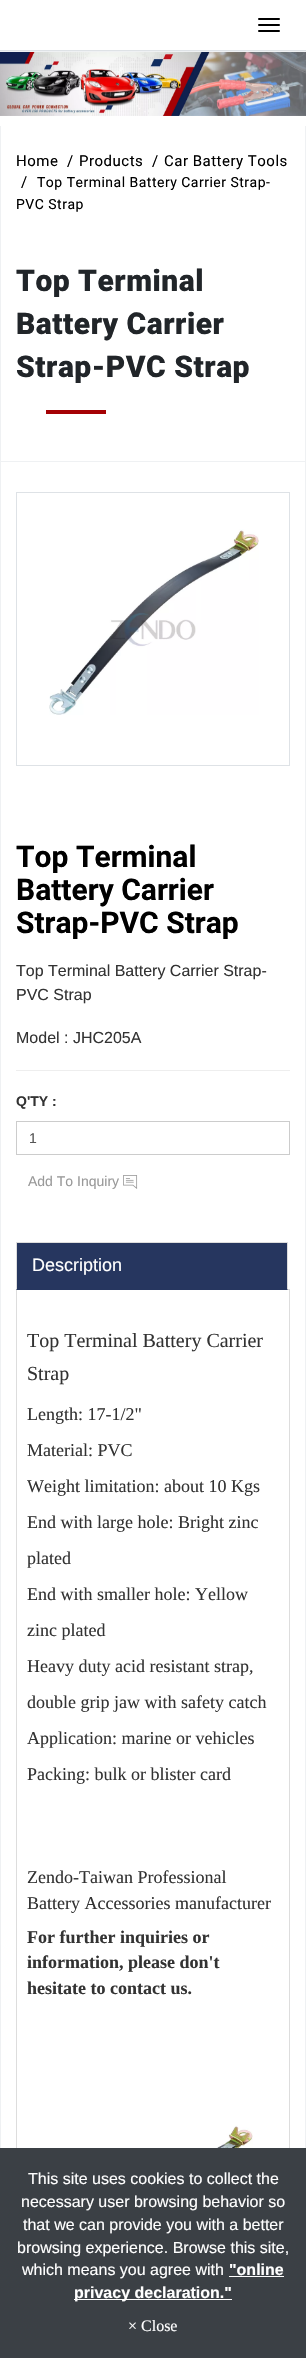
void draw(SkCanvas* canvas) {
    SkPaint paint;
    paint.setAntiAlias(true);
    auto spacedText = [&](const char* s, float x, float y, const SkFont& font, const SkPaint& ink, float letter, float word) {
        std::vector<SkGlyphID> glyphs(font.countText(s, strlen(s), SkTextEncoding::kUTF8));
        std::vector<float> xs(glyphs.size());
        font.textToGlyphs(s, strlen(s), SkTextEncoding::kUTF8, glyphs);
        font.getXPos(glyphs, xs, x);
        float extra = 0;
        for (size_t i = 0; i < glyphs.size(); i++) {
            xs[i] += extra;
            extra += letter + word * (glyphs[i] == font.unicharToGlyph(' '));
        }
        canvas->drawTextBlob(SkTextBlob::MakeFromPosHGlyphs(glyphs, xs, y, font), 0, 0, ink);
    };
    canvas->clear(0xFFFFFFFF);
    paint.setColor(0xFFEFF1F3);
    canvas->drawRect(SkRect::MakeXYWH(0, 51, 306, 1), paint);
    paint.setColor(0xFFDEE2E6);
    canvas->drawRect(SkRect::MakeXYWH(0, 50, 306, 1), paint);
    paint.setColor(0xFF000000);
    canvas->drawRoundRect(SkRect::MakeXYWH(258, 18, 22, 2), 1, 1, paint);
    canvas->drawRoundRect(SkRect::MakeXYWH(258, 24, 22, 2), 1, 1, paint);
    canvas->drawRoundRect(SkRect::MakeXYWH(258, 30, 22, 2), 1, 1, paint);
    canvas->drawImageRect(SkImages::DeferredFromEncodedData(SkData::MakeFromFileName("img1.png")), SkRect::MakeXYWH(0, 52, 306, 64), SkSamplingOptions());
    paint.setColor(0xFFEFF1F3);
    canvas->drawRect(SkRect::MakeXYWH(0, 461, 306, 1), paint);
    canvas->drawRect(SkRect::MakeXYWH(305, 126, 1, 335), paint);
    canvas->drawRect(SkRect::MakeXYWH(0, 126, 1, 335), paint);
    SkFont font1(fontMgr->matchFamilyStyle("Roboto", SkFontStyle::Normal()), 15);
    font1.setSubpixel(true);
    paint.setColor(0xFF000000);
    spacedText("Home", 16, 166, font1, paint, 0.5f, 0);
    spacedText("/", 67, 166, font1, paint, 0.5f, 0);
    spacedText("Products", 79, 166, font1, paint, 0.5f, 0);
    spacedText("/", 152, 166, font1, paint, 0.5f, 0);
    spacedText("Car Battery Tools", 164, 166, font1, paint, 0.5f, 0);
    spacedText("/", 21, 187, font1, paint, 0.5f, 0);
    SkFont font2(fontMgr->matchFamilyStyle("Roboto", SkFontStyle::Normal()), 14);
    font2.setSubpixel(true);
    spacedText("Top Terminal Battery Carrier Strap-", 37, 187, font2, paint, 0.5f, 0);
    spacedText("PVC Strap", 16, 209, font2, paint, 0.5f, 0);
    SkFont font3(fontMgr->matchFamilyStyle("Roboto", SkFontStyle(900, SkFontStyle::kNormal_Width, SkFontStyle::kUpright_Slant)), 30);
    font3.setSubpixel(true);
    paint.setColor(0xFF212529);
    spacedText("Top Terminal", 16, 291, font3, paint, 0.5f, 0);
    spacedText("Battery Carrier", 16, 334, font3, paint, 0.5f, 0);
    spacedText("Strap-PVC Strap", 16, 377, font3, paint, 0.5f, 0);
    paint.setColor(0xFFA50104);
    canvas->drawRect(SkRect::MakeXYWH(46, 410, 60, 4), paint);
    paint.setColor(0xFFEFF1F3);
    canvas->drawRect(SkRect::MakeXYWH(305, 462, 1, 1686), paint);
    canvas->drawRect(SkRect::MakeXYWH(0, 462, 1, 1686), paint);
    paint.setStyle(SkPaint::kStroke_Style);
    paint.setStrokeWidth(1);
    paint.setColor(0xFFDEE2E6);
    canvas->drawRect(SkRect::MakeXYWH(16.5f, 492.5f, 273, 273), paint);
    canvas->drawImageRect(SkImages::DeferredFromEncodedData(SkData::MakeFromFileName("img2.png")), SkRect::MakeXYWH(49, 529, 210, 186), SkSamplingOptions());
    SkFont font4(fontMgr->matchFamilyStyle("Roboto", SkFontStyle::Bold()), 30);
    font4.setSubpixel(true);
    paint.setStyle(SkPaint::kFill_Style);
    paint.setColor(0xFF000000);
    canvas->drawString("Top Terminal", 16, 867, font4, paint);
    canvas->drawString("Battery Carrier", 16, 900, font4, paint);
    canvas->drawString("Strap-PVC Strap", 16, 933, font4, paint);
    SkFont font5(fontMgr->matchFamilyStyle("Liberation Sans", SkFontStyle::Normal()), 16);
    font5.setSubpixel(true);
    paint.setColor(0xFF333333);
    canvas->drawString("Top Terminal Battery Carrier Strap-", 16, 976, font5, paint);
    canvas->drawString("PVC Strap", 16, 1000, font5, paint);
    canvas->drawString("Model : JHC205A", 16, 1043, font5, paint);
    paint.setColor(0xFFEEEEEE);
    canvas->drawRect(SkRect::MakeXYWH(16, 1070, 274, 1), paint);
    SkFont font6(fontMgr->matchFamilyStyle("Liberation Sans", SkFontStyle::Bold()), 14);
    font6.setSubpixel(true);
    paint.setColor(0xFF333333);
    canvas->drawString("Q'TY :", 16, 1106, font6, paint);
    paint.setStyle(SkPaint::kStroke_Style);
    paint.setColor(0xFFCCCCCC);
    canvas->drawRect(SkRect::MakeXYWH(16.5f, 1121.5f, 273, 33), paint);
    SkFont font7(fontMgr->matchFamilyStyle("Liberation Sans", SkFontStyle::Normal()), 14);
    font7.setSubpixel(true);
    paint.setStyle(SkPaint::kFill_Style);
    paint.setColor(0xFF555555);
    canvas->drawString("1", 29, 1143, font7, paint);
    paint.setColor(0xFF999999);
    canvas->drawString("Add To Inquiry", 28, 1186, font7, paint);
    canvas->drawImageRect(SkImages::DeferredFromEncodedData(SkData::MakeFromFileName("img3.png")), SkRect::MakeXYWH(123, 1175, 15, 14), SkSamplingOptions());
    paint.setColor(0xFFDDDDDD);
    canvas->drawRect(SkRect::MakeXYWH(288, 1289, 2, 1), paint);
    paint.setColor(0xFF26365F);
    canvas->drawRect(SkRect::MakeXYWH(16, 1243, 272, 47), paint);
    paint.setColor(0xFFDDDDDD);
    canvas->drawRect(SkRect::MakeXYWH(16, 1242, 272, 1), paint);
    canvas->drawPath(SkPathBuilder().moveTo(288, 1242).lineTo(288, 1290).lineTo(287, 1289).lineTo(287, 1243).close().detach(), paint);
    canvas->drawPath(SkPathBuilder().moveTo(16, 1290).lineTo(16, 1242).lineTo(17, 1243).lineTo(17, 1289).close().detach(), paint);
    SkFont font8(fontMgr->matchFamilyStyle("Liberation Sans", SkFontStyle::Normal()), 18);
    font8.setSubpixel(true);
    paint.setColor(0xFFFFFFFF);
    canvas->drawString("Description", 32, 1271, font8, paint);
    paint.setColor(0xFFDDDDDD);
    canvas->drawRect(SkRect::MakeXYWH(289, 1290, 1, 858), paint);
    canvas->drawRect(SkRect::MakeXYWH(16, 1290, 1, 858), paint);
    SkFont font9(fontMgr->matchFamilyStyle("Liberation Serif", SkFontStyle::Normal()), 20);
    font9.setSubpixel(true);
    paint.setColor(0xFF333333);
    canvas->drawString("Top Terminal Battery Carrier", 27, 1347, font9, paint);
    canvas->drawString("Strap", 27, 1380, font9, paint);
    SkFont font10(fontMgr->matchFamilyStyle("Liberation Serif", SkFontStyle::Normal()), 18);
    font10.setSubpixel(true);
    canvas->drawString("Length: 17-1/2\"", 27, 1420, font10, paint);
    canvas->drawString("Material: PVC", 27, 1456, font10, paint);
    canvas->drawString("Weight limitation: about 10 Kgs", 27, 1492, font10, paint);
    canvas->drawString("End with large hole: Bright zinc", 27, 1528, font10, paint);
    canvas->drawString("plated", 27, 1564, font10, paint);
    canvas->drawString("End with smaller hole: Yellow", 27, 1600, font10, paint);
    canvas->drawString("zinc plated", 27, 1636, font10, paint);
    canvas->drawString("Heavy duty acid resistant strap,", 27, 1672, font10, paint);
    canvas->drawString("double grip jaw with safety catch", 27, 1708, font10, paint);
    canvas->drawString("Application: marine or vehicles", 27, 1744, font10, paint);
    canvas->drawString("Packing: bulk or blister card", 27, 1780, font10, paint);
    canvas->drawString("Zendo-Taiwan Professional", 27, 1883, font10, paint);
    canvas->drawString("Battery Accessories manufacturer", 27, 1909, font10, paint);
    SkFont font11(fontMgr->matchFamilyStyle("Liberation Serif", SkFontStyle::Bold()), 18);
    font11.setSubpixel(true);
    canvas->drawString("For further inquiries or", 27, 1943, font11, paint);
    canvas->drawString("information, please don't", 27, 1968, font11, paint);
    canvas->drawString("hesitate to contact us.", 27, 1994, font11, paint);
    canvas->drawImageRect(SkImages::DeferredFromEncodedData(SkData::MakeFromFileName("img4.png")), SkRect::MakeXYWH(55, 2125, 198, 23), SkSamplingOptions());
    paint.setColor(0xFF3B4045);
    canvas->drawRect(SkRect::MakeXYWH(0, 2148, 306, 210), paint);
    paint.setColor(0xFFFFFFFF);
    canvas->drawString("This site uses cookies to collect the", 28, 2184, font5, paint);
    canvas->drawString("necessary user browsing behavior so", 21, 2207, font5, paint);
    canvas->drawString("that we can provide you with a better", 23, 2230, font5, paint);
    canvas->drawString("browsing experience. Browse this site,", 17, 2253, font5, paint);
    canvas->drawString("which means you agree with", 22, 2275, font5, paint);
    SkFont font12(fontMgr->matchFamilyStyle("Liberation Sans", SkFontStyle::Bold()), 16);
    font12.setSubpixel(true);
    canvas->drawString("\"online", 229, 2275, font12, paint);
    canvas->drawRect(SkRect::MakeXYWH(229, 2276, 55, 1), paint);
    canvas->drawRect(SkRect::MakeXYWH(74, 2299, 158, 1), paint);
    canvas->drawString("privacy declaration.\"", 74, 2298, font12, paint);
    SkFont font13(fontMgr->matchFamilyStyle("Liberation Serif", SkFontStyle::Normal()), 16);
    font13.setSubpixel(true);
    canvas->drawString("× Close", 128, 2331, font13, paint);
}
